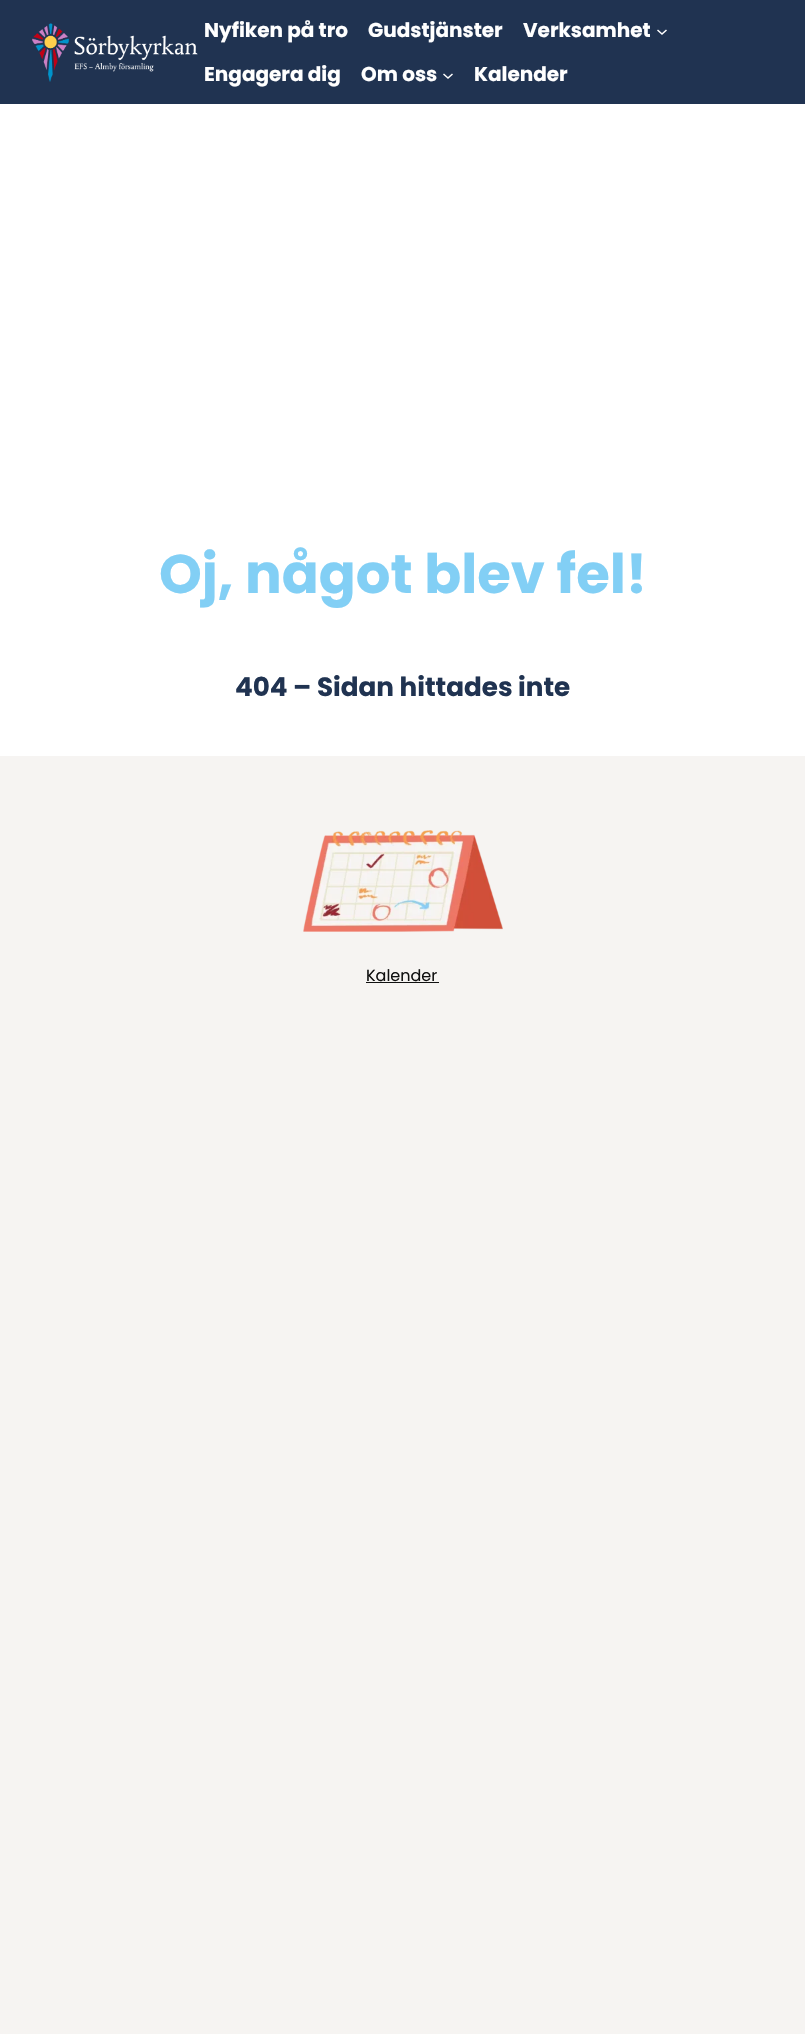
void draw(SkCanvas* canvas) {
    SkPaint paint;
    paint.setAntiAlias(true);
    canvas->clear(0xFFFFFFFF);
    paint.setColor(0xFF203351);
    canvas->drawRect(SkRect::MakeXYWH(0, 0, 805, 104), paint);
    canvas->drawImageRect(SkImages::DeferredFromEncodedData(SkData::MakeFromFileName("img1.png")), SkRect::MakeXYWH(32, 23, 166, 59), SkSamplingOptions());
    SkFont font1(fontMgr->matchFamilyStyle("Poppins", SkFontStyle::Bold()), 20);
    font1.setSubpixel(true);
    paint.setColor(0xFFFFFFFF);
    canvas->drawString("Nyfiken på tro", 204, 37, font1, paint);
    canvas->drawString("Gudstjänster", 368, 37, font1, paint);
    canvas->drawString("Verksamhet", 523, 37, font1, paint);
    paint.setStyle(SkPaint::kStroke_Style);
    paint.setStrokeWidth(1.5f);
    canvas->drawPath(SkPathBuilder().moveTo(657.5f, 30).lineTo(662, 34).lineTo(666.5f, 30).detach(), paint);
    paint.setStyle(SkPaint::kFill_Style);
    canvas->drawString("Engagera dig", 204, 81, font1, paint);
    canvas->drawString("Om oss", 361, 81, font1, paint);
    paint.setStyle(SkPaint::kStroke_Style);
    canvas->drawPath(SkPathBuilder().moveTo(443.5f, 74).lineTo(448, 78).lineTo(452.5f, 74).detach(), paint);
    paint.setStyle(SkPaint::kFill_Style);
    canvas->drawString("Kalender", 474, 81, font1, paint);
    SkFont font2(fontMgr->matchFamilyStyle("Poppins", SkFontStyle::Bold()), 54.5f);
    font2.setSubpixel(true);
    paint.setColor(0xFF82CFF5);
    canvas->drawString("Oj, något blev fel!", 159, 593, font2, paint);
    SkFont font3(fontMgr->matchFamilyStyle("Poppins", SkFontStyle::Bold()), 26.2f);
    font3.setSubpixel(true);
    paint.setColor(0xFF203351);
    canvas->drawString("404 – Sidan hittades inte", 235, 696, font3, paint);
    paint.setColor(0xFFF6F4F2);
    canvas->drawRect(SkRect::MakeXYWH(0, 756, 805, 1278), paint);
    canvas->drawImageRect(SkImages::DeferredFromEncodedData(SkData::MakeFromFileName("img2.png")), SkRect::MakeXYWH(303, 830, 200, 102), SkSamplingOptions());
    SkFont font4(fontMgr->matchFamilyStyle("Poppins", SkFontStyle::Normal()), 18);
    font4.setSubpixel(true);
    paint.setColor(0xFF111111);
    canvas->drawString("Kalender", 366, 981, font4, paint);
    canvas->drawRect(SkRect::MakeXYWH(366, 982, 73, 1), paint);
}
